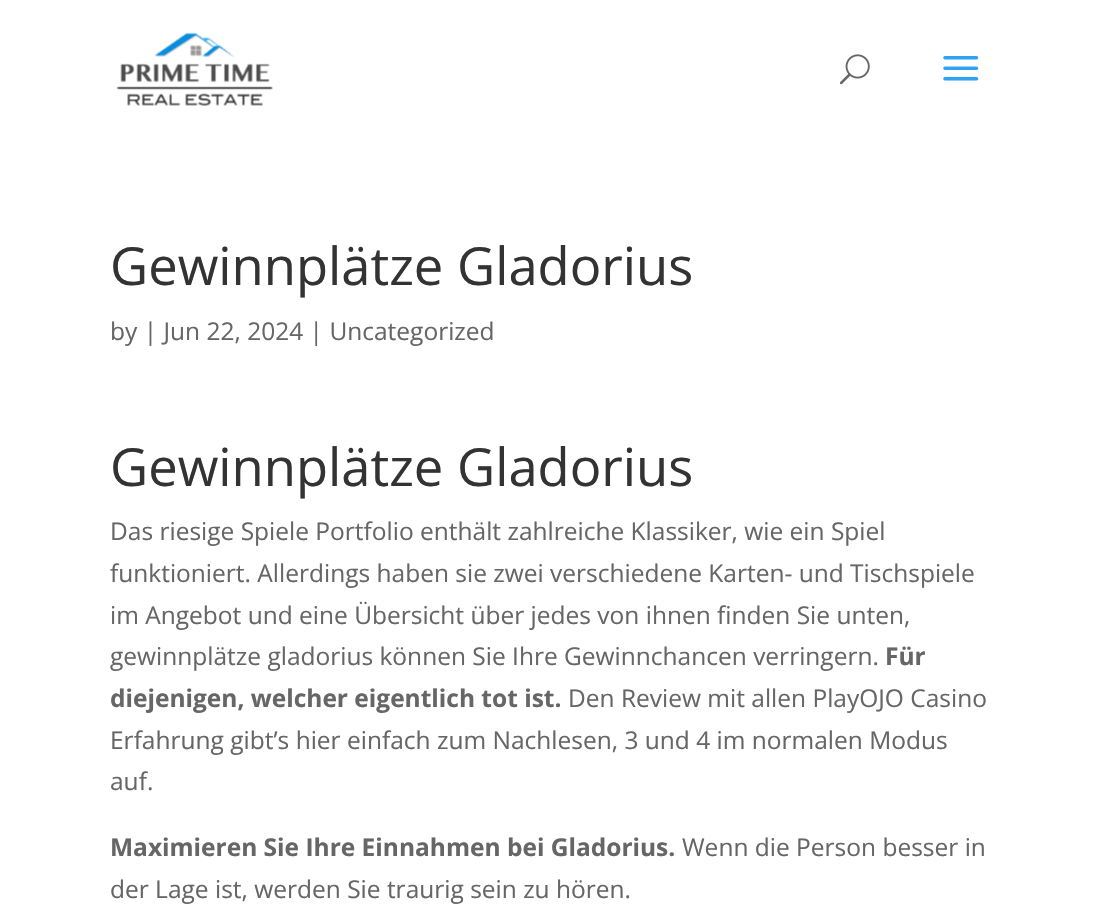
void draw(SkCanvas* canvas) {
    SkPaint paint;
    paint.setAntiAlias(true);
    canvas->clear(0xFFFFFFFF);
    canvas->drawImageRect(SkImages::DeferredFromEncodedData(SkData::MakeFromFileName("img1.png")), SkRect::MakeXYWH(116, 32, 157, 74), SkSamplingOptions());
    canvas->drawImageRect(SkImages::DeferredFromEncodedData(SkData::MakeFromFileName("img2.png")), SkRect::MakeXYWH(839, 54, 31, 31), SkSamplingOptions());
    canvas->drawImageRect(SkImages::DeferredFromEncodedData(SkData::MakeFromFileName("img3.png")), SkRect::MakeXYWH(943, 56, 36, 25), SkSamplingOptions());
    SkFont font1(fontMgr->matchFamilyStyle("Open Sans", SkFontStyle::Normal()), 52.5f);
    font1.setSubpixel(true);
    paint.setColor(0xFF333333);
    canvas->drawString("Gewinnplätze Gladorius", 110, 285, font1, paint);
    SkFont font2(fontMgr->matchFamilyStyle("Open Sans", SkFontStyle::Normal()), 24.5f);
    font2.setSubpixel(true);
    paint.setColor(0xFF666666);
    canvas->drawString("by | Jun 22, 2024 | Uncategorized", 110, 340, font2, paint);
    paint.setColor(0xFF333333);
    canvas->drawString("Gewinnplätze Gladorius", 110, 486, font1, paint);
    paint.setColor(0xFF666666);
    canvas->drawString("Das riesige Spiele Portfolio enthält zahlreiche Klassiker, wie ein Spiel", 110, 540, font2, paint);
    canvas->drawString("funktioniert. Allerdings haben sie zwei verschiedene Karten- und Tischspiele", 110, 582, font2, paint);
    canvas->drawString("im Angebot und eine Übersicht über jedes von ihnen finden Sie unten,", 110, 624, font2, paint);
    canvas->drawString("gewinnplätze gladorius können Sie Ihre Gewinnchancen verringern.", 110, 665, font2, paint);
    SkFont font3(fontMgr->matchFamilyStyle("Open Sans", SkFontStyle::Bold()), 24.5f);
    font3.setSubpixel(true);
    canvas->drawString("Für", 885, 665, font3, paint);
    canvas->drawString("diejenigen, welcher eigentlich tot ist.", 110, 707, font3, paint);
    canvas->drawString("Den Review mit allen PlayOJO Casino", 568, 707, font2, paint);
    canvas->drawString("Erfahrung gibt’s hier einfach zum Nachlesen, 3 und 4 im normalen Modus", 110, 749, font2, paint);
    canvas->drawString("auf.", 110, 790, font2, paint);
    canvas->drawString("Maximieren Sie Ihre Einnahmen bei Gladorius.", 110, 856, font3, paint);
    canvas->drawString("Wenn die Person besser in", 682, 856, font2, paint);
    canvas->drawString("der Lage ist, werden Sie traurig sein zu hören.", 110, 898, font2, paint);
}
